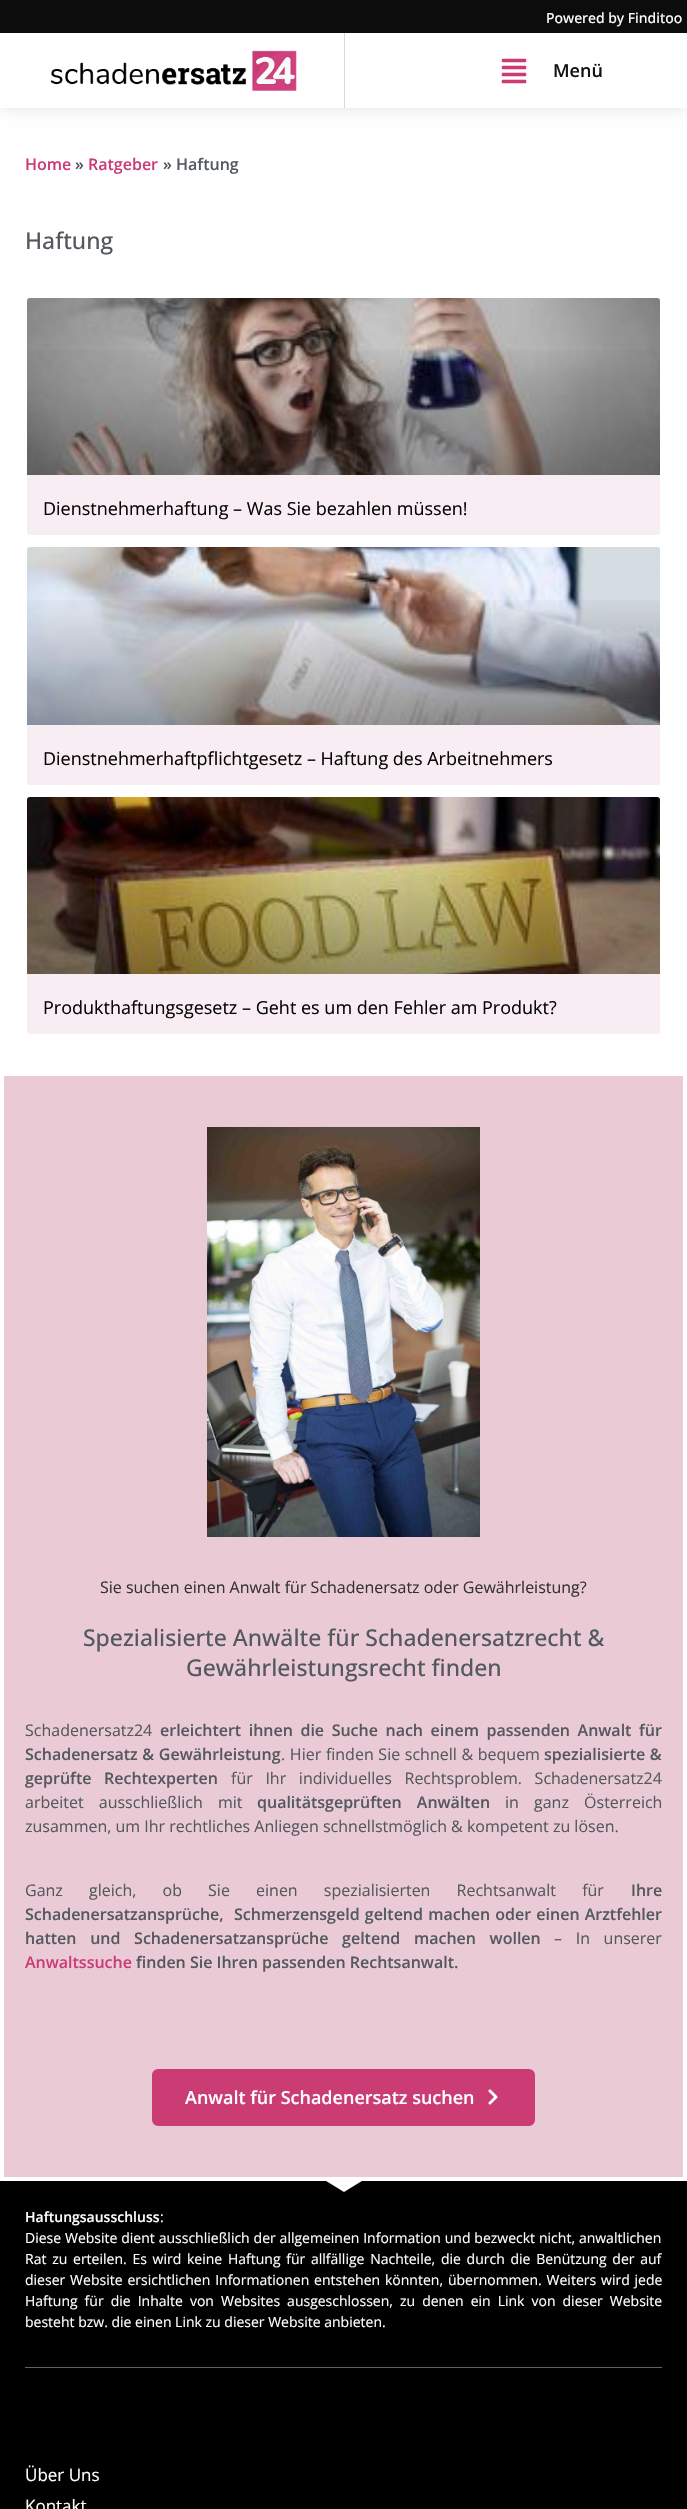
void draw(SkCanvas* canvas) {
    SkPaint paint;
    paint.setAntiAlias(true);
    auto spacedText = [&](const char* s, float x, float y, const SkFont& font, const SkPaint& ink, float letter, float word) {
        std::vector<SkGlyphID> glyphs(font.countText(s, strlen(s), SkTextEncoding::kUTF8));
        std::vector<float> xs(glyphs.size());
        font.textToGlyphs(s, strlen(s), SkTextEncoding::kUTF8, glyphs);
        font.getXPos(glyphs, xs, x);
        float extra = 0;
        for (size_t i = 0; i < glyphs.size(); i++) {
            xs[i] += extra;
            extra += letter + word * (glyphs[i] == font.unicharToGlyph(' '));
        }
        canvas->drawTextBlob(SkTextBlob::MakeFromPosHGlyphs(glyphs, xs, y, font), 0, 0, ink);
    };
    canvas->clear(0xFFFFFFFF);
    paint.setColor(0xFF0C0C0C);
    canvas->drawRect(SkRect::MakeXYWH(0, 0, 687, 33), paint);
    SkFont font1(fontMgr->matchFamilyStyle("Open Sans", SkFontStyle(500, SkFontStyle::kNormal_Width, SkFontStyle::kUpright_Slant)), 14);
    font1.setSubpixel(true);
    paint.setColor(0xFFFFFFFF);
    canvas->drawString("Powered by Finditoo", 546, 23, font1, paint);
    canvas->save();
    canvas->clipPath(SkPathBuilder(SkPathFillType::kEvenOdd).moveTo(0, 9).lineTo(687, 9).lineTo(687, 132).lineTo(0, 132).close().moveTo(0, 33).lineTo(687, 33).lineTo(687, 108).lineTo(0, 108).close().detach(), true);
    paint.setColor(0x21000000);
    paint.setMaskFilter(SkMaskFilter::MakeBlur(kNormal_SkBlurStyle, 8));
    canvas->drawRect(SkRect::MakeXYWH(1, 34, 685, 73), paint);
    paint.setMaskFilter(nullptr);
    canvas->restore();
    canvas->drawImageRect(SkImages::DeferredFromEncodedData(SkData::MakeFromFileName("img1.png")), SkRect::MakeXYWH(50, 50, 247, 41), SkSamplingOptions());
    paint.setColor(0xFFD9D8D8);
    canvas->drawRect(SkRect::MakeXYWH(344, 33, 1, 75), paint);
    canvas->drawImageRect(SkImages::DeferredFromEncodedData(SkData::MakeFromFileName("img2.png")), SkRect::MakeXYWH(501, 58, 26, 26), SkSamplingOptions());
    SkFont font2(fontMgr->matchFamilyStyle("Open Sans", SkFontStyle(600, SkFontStyle::kNormal_Width, SkFontStyle::kUpright_Slant)), 18);
    font2.setSubpixel(true);
    paint.setColor(0xFF131313);
    canvas->drawString("Menü", 553, 77, font2, paint);
    SkFont font3(fontMgr->matchFamilyStyle("Open Sans", SkFontStyle(600, SkFontStyle::kNormal_Width, SkFontStyle::kUpright_Slant)), 16);
    font3.setSubpixel(true);
    paint.setColor(0xFFCB3B74);
    canvas->drawString("Home", 25, 170, font3, paint);
    paint.setColor(0xFF54595F);
    canvas->drawString("»", 75, 170, font3, paint);
    paint.setColor(0xFFCB3B74);
    canvas->drawString("Ratgeber", 88, 170, font3, paint);
    paint.setColor(0xFF54595F);
    canvas->drawString("» Haftung", 163, 170, font3, paint);
    SkFont font4(fontMgr->matchFamilyStyle("Open Sans", SkFontStyle(500, SkFontStyle::kNormal_Width, SkFontStyle::kUpright_Slant)), 23);
    font4.setSubpixel(true);
    canvas->drawString("Haftung", 25, 249, font4, paint);
    paint.setColor(0xFFF8EDF2);
    canvas->drawRoundRect(SkRect::MakeXYWH(27, 298, 633, 237), 3, 3, paint);
    canvas->drawImageRect(SkImages::DeferredFromEncodedData(SkData::MakeFromFileName("img3.png")), SkRect::MakeXYWH(27, 298, 633, 177), SkSamplingOptions());
    {
        const SkColor colors[] = {0x59000000, 0x00000000};
        const float stops[] = {0, 0.75f};
        const SkPoint ends[] = {{344, 475}, {344, 298}};
        paint.setShader(SkGradientShader::MakeLinear(ends, colors, stops, 2, SkTileMode::kClamp));
        paint.setAlpha(255);
    }
    canvas->drawRect(SkRect::MakeXYWH(27, 350, 633, 125), paint);
    SkFont font5(fontMgr->matchFamilyStyle("Open Sans", SkFontStyle::Normal()), 18);
    font5.setSubpixel(true);
    paint.setShader(nullptr);
    paint.setColor(0xFF060606);
    canvas->drawString("Dienstnehmerhaftung – Was Sie bezahlen müssen!", 43, 515, font5, paint);
    paint.setColor(0xFFF8EDF2);
    canvas->drawRoundRect(SkRect::MakeXYWH(27, 547, 633, 238), 3, 3, paint);
    canvas->drawImageRect(SkImages::DeferredFromEncodedData(SkData::MakeFromFileName("img4.png")), SkRect::MakeXYWH(27, 547, 633, 178), SkSamplingOptions());
    {
        const SkColor colors[] = {0x59000000, 0x00000000};
        const float stops[] = {0, 0.75f};
        const SkPoint ends[] = {{344, 725}, {344, 547}};
        paint.setShader(SkGradientShader::MakeLinear(ends, colors, stops, 2, SkTileMode::kClamp));
        paint.setAlpha(255);
    }
    canvas->drawRect(SkRect::MakeXYWH(27, 600, 633, 125), paint);
    paint.setShader(nullptr);
    paint.setColor(0xFF060606);
    canvas->drawString("Dienstnehmerhaftpflichtgesetz – Haftung des Arbeitnehmers", 43, 765, font5, paint);
    paint.setColor(0xFFF8EDF2);
    canvas->drawRoundRect(SkRect::MakeXYWH(27, 797, 633, 237), 3, 3, paint);
    canvas->drawImageRect(SkImages::DeferredFromEncodedData(SkData::MakeFromFileName("img5.png")), SkRect::MakeXYWH(27, 797, 633, 177), SkSamplingOptions());
    {
        const SkColor colors[] = {0x59000000, 0x00000000};
        const float stops[] = {0, 0.75f};
        const SkPoint ends[] = {{344, 974}, {344, 797}};
        paint.setShader(SkGradientShader::MakeLinear(ends, colors, stops, 2, SkTileMode::kClamp));
        paint.setAlpha(255);
    }
    canvas->drawRect(SkRect::MakeXYWH(27, 849, 633, 125), paint);
    paint.setShader(nullptr);
    paint.setColor(0xFF060606);
    canvas->drawString("Produkthaftungsgesetz – Geht es um den Fehler am Produkt?", 43, 1014, font5, paint);
    paint.setColor(0xFFEACBD5);
    canvas->drawRect(SkRect::MakeXYWH(4, 1076, 679, 1101), paint);
    canvas->drawImageRect(SkImages::DeferredFromEncodedData(SkData::MakeFromFileName("img6.png")), SkRect::MakeXYWH(207, 1127, 273, 410), SkSamplingOptions());
    SkFont font6(fontMgr->matchFamilyStyle("Open Sans", SkFontStyle::Normal()), 16);
    font6.setSubpixel(true);
    paint.setColor(0xFF333333);
    canvas->drawString("Sie suchen einen Anwalt für Schadenersatz oder Gewährleistung?", 100, 1593, font6, paint);
    paint.setColor(0xFF54595F);
    canvas->drawString("Spezialisierte Anwälte für Schadenersatzrecht &", 83, 1646, font4, paint);
    canvas->drawString("Gewährleistungsrecht finden", 186, 1676, font4, paint);
    canvas->drawString("Schadenersatz24", 25, 1736, font6, paint);
    spacedText("erleichtert ihnen die Suche nach einem passenden Anwalt für", 160, 1736, font3, paint, 0, 3.4f);
    spacedText("Schadenersatz & Gewährleistung", 25, 1760, font3, paint, 0, 0.5f);
    spacedText(". Hier finden Sie schnell & bequem", 281, 1760, font6, paint, 0, 0.5f);
    spacedText("spezialisierte &", 544, 1760, font3, paint, 0, 0.5f);
    spacedText("geprüfte Rechtexperten", 25, 1784, font3, paint, 0, 8.5f);
    spacedText("für Ihr individuelles Rechtsproblem. Schadenersatz24", 231, 1784, font6, paint, 0, 8.5f);
    spacedText("arbeitet ausschließlich mit", 25, 1808, font6, paint, 0, 11);
    spacedText("qualitätsgeprüften Anwälten", 257, 1808, font3, paint, 0, 11);
    spacedText("in ganz Österreich", 505, 1808, font6, paint, 0, 11);
    canvas->drawString("zusammen, um Ihr rechtliches Anliegen schnellstmöglich & kompetent zu lösen.", 25, 1832, font6, paint);
    spacedText("Ganz gleich, ob Sie einen spezialisierten Rechtsanwalt für", 25, 1896, font6, paint, 0, 22);
    canvas->drawString("Ihre", 631, 1896, font3, paint);
    spacedText("Schadenersatzansprüche,  Schmerzensgeld geltend machen oder einen Arztfehler", 25, 1920, font3, paint, 0, 1);
    spacedText("hatten und Schadenersatzansprüche geltend machen wollen", 25, 1944, font3, paint, 0, 9.5f);
    spacedText("– In unserer", 554, 1944, font6, paint, 0, 9.5f);
    paint.setColor(0xFFCB3B74);
    canvas->drawString("Anwaltssuche", 25, 1968, font3, paint);
    paint.setColor(0xFF54595F);
    canvas->drawString("finden Sie Ihren passenden Rechtsanwalt.", 136, 1968, font3, paint);
    paint.setColor(0xFFCB3B74);
    canvas->drawRoundRect(SkRect::MakeXYWH(153.5f, 2070.5f, 380, 54), 4.5f, 4.5f, paint);
    paint.setStyle(SkPaint::kStroke_Style);
    paint.setStrokeWidth(3);
    canvas->drawRoundRect(SkRect::MakeXYWH(153.5f, 2070.5f, 380, 54), 4.5f, 4.5f, paint);
    paint.setStyle(SkPaint::kFill_Style);
    paint.setColor(0xFFFFFFFF);
    canvas->drawString("Anwalt für Schadenersatz suchen", 185, 2104, font2, paint);
    canvas->drawImageRect(SkImages::DeferredFromEncodedData(SkData::MakeFromFileName("img7.png")), SkRect::MakeXYWH(488, 2089, 10, 16), SkSamplingOptions());
    paint.setColor(0xFF000000);
    canvas->drawRect(SkRect::MakeXYWH(0, 2181, 687, 328), paint);
    paint.setColor(0xFFFFFFFF);
    canvas->drawPath(SkPathBuilder().moveTo(344, 2192).lineTo(324.5f, 2180).lineTo(363.5f, 2180).close().detach(), paint);
    paint.setColor(0xFF616161);
    canvas->drawRect(SkRect::MakeXYWH(25, 2367, 637, 1), paint);
    SkFont font7(fontMgr->matchFamilyStyle("Open Sans", SkFontStyle(600, SkFontStyle::kNormal_Width, SkFontStyle::kUpright_Slant)), 14);
    font7.setSubpixel(true);
    paint.setColor(0xFFFFFFFF);
    canvas->drawString("Haftungsausschluss", 25, 2222, font7, paint);
    SkFont font8(fontMgr->matchFamilyStyle("Open Sans", SkFontStyle::Normal()), 14);
    font8.setSubpixel(true);
    canvas->drawString(":", 160, 2222, font8, paint);
    spacedText("Diese Website dient ausschließlich der allgemeinen Information und bezweckt nicht, anwaltlichen", 25, 2243, font8, paint, 0, 0.25f);
    spacedText("Rat zu erteilen. Es wird keine Haftung für allfällige Nachteile, die durch die Benützung der auf", 25, 2264, font8, paint, 0, 2.1f);
    spacedText("dieser Website ersichtlichen Informationen entstehen könnten, übernommen. Weiters wird jede", 25, 2285, font8, paint, 0, 1.25f);
    spacedText("Haftung für die Inhalte von Websites ausgeschlossen, zu denen ein Link von dieser Website", 25, 2306, font8, paint, 0, 3.4f);
    canvas->drawString("besteht bzw. die einen Link zu dieser Website anbieten.", 25, 2327, font8, paint);
    SkFont font9(fontMgr->matchFamilyStyle("Open Sans", SkFontStyle::Normal()), 17);
    font9.setSubpixel(true);
    canvas->drawString("Über Uns", 25, 2481, font9, paint);
    canvas->drawString("Kontakt", 25, 2512, font9, paint);
}
